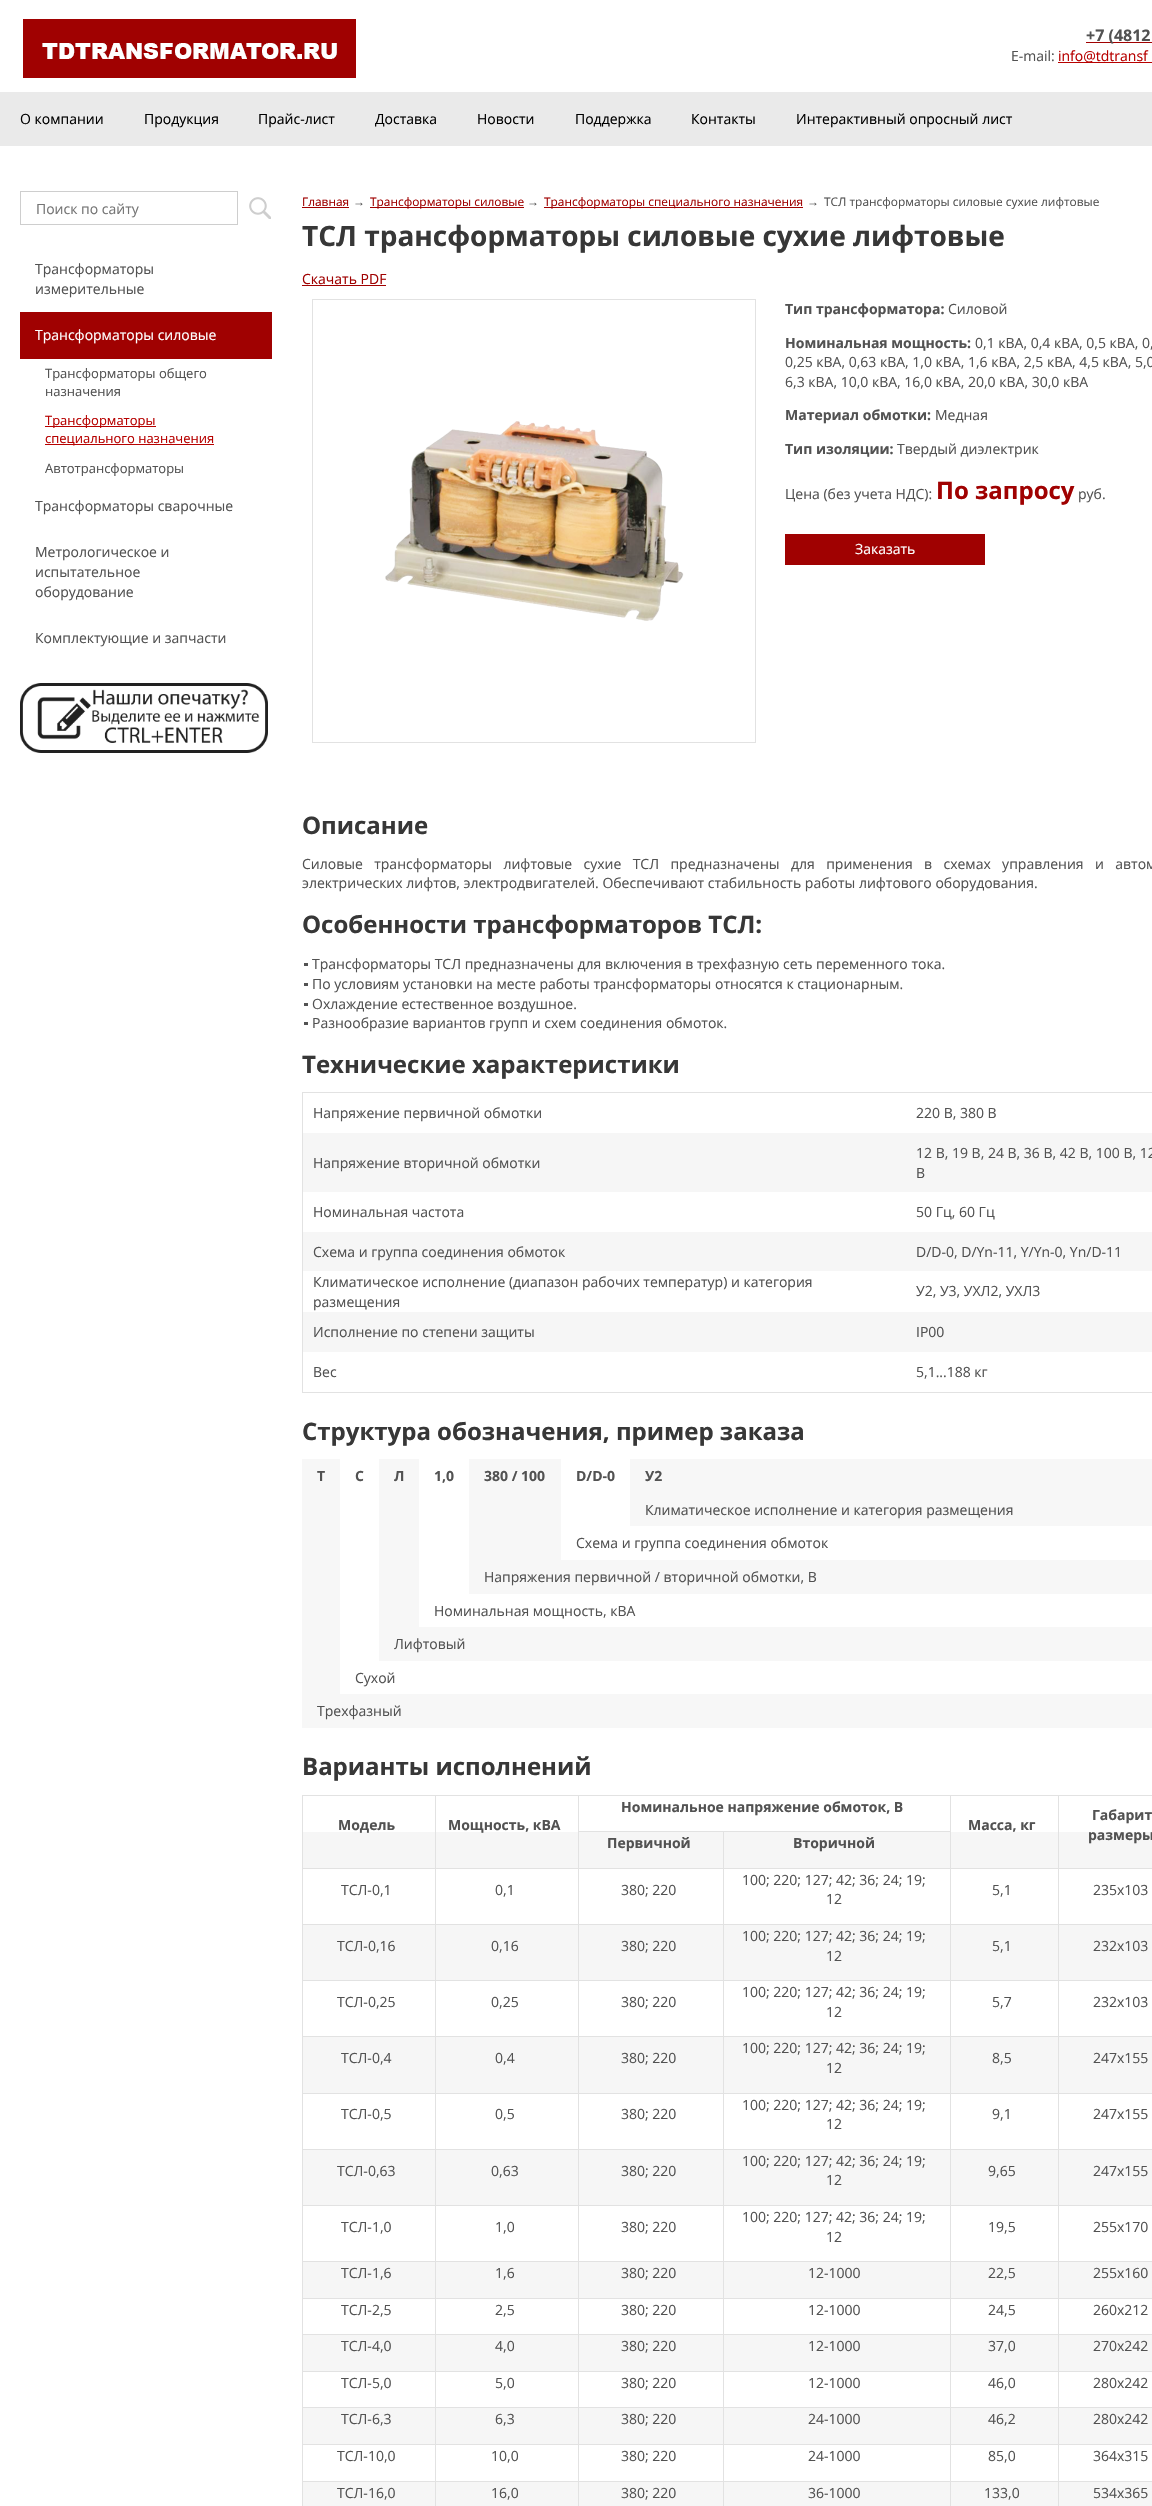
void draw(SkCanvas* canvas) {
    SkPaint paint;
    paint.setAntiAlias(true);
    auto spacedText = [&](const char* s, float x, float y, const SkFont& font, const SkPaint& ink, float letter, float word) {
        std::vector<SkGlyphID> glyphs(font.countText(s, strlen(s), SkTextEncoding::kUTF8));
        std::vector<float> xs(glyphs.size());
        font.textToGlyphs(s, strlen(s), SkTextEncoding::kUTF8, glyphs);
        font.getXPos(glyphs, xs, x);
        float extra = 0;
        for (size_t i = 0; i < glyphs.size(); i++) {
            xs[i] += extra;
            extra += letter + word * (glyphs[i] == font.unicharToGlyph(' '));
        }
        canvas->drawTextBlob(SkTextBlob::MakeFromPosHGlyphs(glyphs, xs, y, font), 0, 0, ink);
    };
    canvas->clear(0xFFFFFFFF);
    canvas->drawImageRect(SkImages::DeferredFromEncodedData(SkData::MakeFromFileName("img1.png")), SkRect::MakeXYWH(23, 19, 333, 59), SkSamplingOptions());
    paint.setColor(0xFFA00101);
    canvas->drawRect(SkRect::MakeXYWH(1086, 42, 66, 1), paint);
    SkFont font1(fontMgr->matchFamilyStyle("Open Sans", SkFontStyle::Bold()), 16);
    font1.setSubpixel(true);
    paint.setColor(0xFF525252);
    canvas->drawString("+7 (4812", 1086, 41, font1, paint);
    SkFont font2(fontMgr->matchFamilyStyle("Open Sans", SkFontStyle::Normal()), 14);
    font2.setSubpixel(true);
    canvas->drawString("E-mail:", 1011, 61, font2, paint);
    paint.setColor(0xFFB70100);
    canvas->drawRect(SkRect::MakeXYWH(1058, 62, 94, 1), paint);
    canvas->drawString("info@tdtransf", 1058, 61, font2, paint);
    paint.setColor(0xFFEAEAEA);
    canvas->drawRect(SkRect::MakeXYWH(0, 92, 1152, 54), paint);
    paint.setColor(0xFF000000);
    canvas->drawString("О компании", 20, 124, font2, paint);
    canvas->drawString("Продукция", 144, 124, font2, paint);
    canvas->drawString("Прайс-лист", 258, 124, font2, paint);
    canvas->drawString("Доставка", 375, 124, font2, paint);
    canvas->drawString("Новости", 477, 124, font2, paint);
    canvas->drawString("Поддержка", 575, 124, font2, paint);
    canvas->drawString("Контакты", 691, 124, font2, paint);
    canvas->drawString("Интерактивный опросный лист", 796, 124, font2, paint);
    paint.setStyle(SkPaint::kStroke_Style);
    paint.setStrokeWidth(1);
    paint.setColor(0xFFCECECE);
    canvas->drawRect(SkRect::MakeXYWH(20.5f, 191.5f, 217, 33), paint);
    paint.setStyle(SkPaint::kFill_Style);
    paint.setColor(0xFF757575);
    canvas->drawString("Поиск по сайту", 36, 214, font2, paint);
    canvas->drawImageRect(SkImages::DeferredFromEncodedData(SkData::MakeFromFileName("img2.png")), SkRect::MakeXYWH(249, 197, 22, 22), SkSamplingOptions());
    paint.setColor(0xFF525252);
    canvas->drawString("Трансформаторы", 35, 274, font2, paint);
    canvas->drawString("измерительные", 35, 294, font2, paint);
    paint.setColor(0xFFA00101);
    canvas->drawRect(SkRect::MakeXYWH(20, 312, 252, 47), paint);
    paint.setColor(0xFFFFFFFF);
    canvas->drawString("Трансформаторы силовые", 35, 340, font2, paint);
    SkFont font3(fontMgr->matchFamilyStyle("Open Sans", SkFontStyle::Normal()), 13);
    font3.setSubpixel(true);
    paint.setColor(0xFF525252);
    canvas->drawString("Трансформаторы общего", 45, 378, font3, paint);
    canvas->drawString("назначения", 45, 396, font3, paint);
    paint.setColor(0xFFB70100);
    canvas->drawRect(SkRect::MakeXYWH(45, 426, 111, 1), paint);
    canvas->drawString("Трансформаторы", 45, 425, font3, paint);
    canvas->drawRect(SkRect::MakeXYWH(45, 444, 169, 1), paint);
    canvas->drawString("специального назначения", 45, 443, font3, paint);
    paint.setColor(0xFF525252);
    canvas->drawString("Автотрансформаторы", 45, 473, font3, paint);
    canvas->drawString("Трансформаторы сварочные", 35, 511, font2, paint);
    canvas->drawString("Метрологическое и", 35, 557, font2, paint);
    canvas->drawString("испытательное", 35, 577, font2, paint);
    canvas->drawString("оборудование", 35, 597, font2, paint);
    canvas->drawString("Комплектующие и запчасти", 35, 643, font2, paint);
    canvas->drawImageRect(SkImages::DeferredFromEncodedData(SkData::MakeFromFileName("img3.png")), SkRect::MakeXYWH(20, 683, 248, 70), SkSamplingOptions());
    SkFont font4(fontMgr->matchFamilyStyle("Open Sans", SkFontStyle::Normal()), 11.9f);
    font4.setSubpixel(true);
    paint.setColor(0xFFA00101);
    canvas->drawString("Главная", 302, 206, font4, paint);
    canvas->drawRect(SkRect::MakeXYWH(302, 207, 47, 1), paint);
    SkFont font5(fontMgr->matchFamilyStyle("Liberation Sans", SkFontStyle::Normal()), 11.9f);
    font5.setSubpixel(true);
    paint.setColor(0xFF525252);
    canvas->drawString("→", 353, 206, font5, paint);
    paint.setColor(0xFFA00101);
    canvas->drawRect(SkRect::MakeXYWH(370, 207, 154, 1), paint);
    canvas->drawString("Трансформаторы силовые", 370, 206, font4, paint);
    paint.setColor(0xFF525252);
    canvas->drawString("→", 527, 206, font5, paint);
    paint.setColor(0xFFA00101);
    canvas->drawRect(SkRect::MakeXYWH(544, 207, 259, 1), paint);
    canvas->drawString("Трансформаторы специального назначения", 544, 206, font4, paint);
    paint.setColor(0xFF525252);
    canvas->drawString("→", 807, 206, font5, paint);
    canvas->drawString("ТСЛ трансформаторы силовые сухие лифтовые", 824, 206, font4, paint);
    SkFont font6(fontMgr->matchFamilyStyle("Open Sans", SkFontStyle::Bold()), 28);
    font6.setSubpixel(true);
    paint.setColor(0xFF373737);
    canvas->drawString("ТСЛ трансформаторы силовые сухие лифтовые", 302, 246, font6, paint);
    paint.setColor(0xFFA00101);
    canvas->drawString("Скачать PDF", 302, 284, font2, paint);
    canvas->drawRect(SkRect::MakeXYWH(302, 285, 84, 1), paint);
    paint.setStyle(SkPaint::kStroke_Style);
    paint.setColor(0xFFE2E2E2);
    canvas->drawRect(SkRect::MakeXYWH(312.5f, 299.5f, 443, 443), paint);
    canvas->drawImageRect(SkImages::DeferredFromEncodedData(SkData::MakeFromFileName("img4.png")), SkRect::MakeXYWH(385, 421, 299, 200), SkSamplingOptions());
    SkFont font7(fontMgr->matchFamilyStyle("Open Sans", SkFontStyle::Bold()), 14);
    font7.setSubpixel(true);
    paint.setStyle(SkPaint::kFill_Style);
    paint.setColor(0xFF525252);
    canvas->drawString("Тип трансформатора:", 785, 314, font7, paint);
    canvas->drawString("Силовой", 948, 314, font2, paint);
    canvas->drawString("Номинальная мощность:", 785, 348, font7, paint);
    canvas->drawString("0,1 кВА, 0,4 кВА, 0,5 кВА, 0,", 975, 348, font2, paint);
    canvas->drawString("0,25 кВА, 0,63 кВА, 1,0 кВА, 1,6 кВА, 2,5 кВА, 4,5 кВА, 5,0", 785, 367, font2, paint);
    canvas->drawString("6,3 кВА, 10,0 кВА, 16,0 кВА, 20,0 кВА, 30,0 кВА", 785, 387, font2, paint);
    canvas->drawString("Материал обмотки:", 785, 420, font7, paint);
    canvas->drawString("Медная", 935, 420, font2, paint);
    canvas->drawString("Тип изоляции:", 785, 454, font7, paint);
    canvas->drawString("Твердый диэлектрик", 897, 454, font2, paint);
    canvas->drawString("Цена (без учета НДС):", 785, 499, font2, paint);
    SkFont font8(fontMgr->matchFamilyStyle("Open Sans", SkFontStyle::Bold()), 24);
    font8.setSubpixel(true);
    paint.setColor(0xFFA00101);
    canvas->drawString("По запросу", 936, 499, font8, paint);
    paint.setColor(0xFF525252);
    canvas->drawString("руб.", 1078, 499, font2, paint);
    paint.setColor(0xFFA00101);
    canvas->drawRect(SkRect::MakeXYWH(785, 534, 200, 31), paint);
    paint.setColor(0xFFFFFFFF);
    canvas->drawString("Заказать", 855, 554, font2, paint);
    paint.setColor(0xFF373737);
    canvas->drawString("Описание", 302, 834, font8, paint);
    paint.setColor(0xFF525252);
    spacedText("Силовые трансформаторы лифтовые сухие ТСЛ предназначены для применения в схемах управления и автом", 302, 869, font2, paint, 0, 7.75f);
    canvas->drawString("электрических лифтов, электродвигателей. Обеспечивают стабильность работы лифтового оборудования.", 302, 888, font2, paint);
    paint.setColor(0xFF373737);
    canvas->drawString("Особенности трансформаторов ТСЛ:", 302, 933, font8, paint);
    paint.setColor(0xFF525252);
    canvas->drawRect(SkRect::MakeXYWH(304, 963, 4, 3), paint);
    canvas->drawString("Трансформаторы ТСЛ предназначены для включения в трехфазную сеть переменного тока.", 312, 969, font2, paint);
    canvas->drawRect(SkRect::MakeXYWH(304, 983, 4, 3), paint);
    canvas->drawString("По условиям установки на месте работы трансформаторы относятся к стационарным.", 312, 989, font2, paint);
    canvas->drawRect(SkRect::MakeXYWH(304, 1003, 4, 3), paint);
    canvas->drawString("Охлаждение естественное воздушное.", 312, 1009, font2, paint);
    canvas->drawRect(SkRect::MakeXYWH(304, 1022, 4, 3), paint);
    canvas->drawString("Разнообразие вариантов групп и схем соединения обмоток.", 312, 1028, font2, paint);
    paint.setColor(0xFF373737);
    canvas->drawString("Технические характеристики", 302, 1073, font8, paint);
    paint.setColor(0xFFE2E2E2);
    canvas->drawRect(SkRect::MakeXYWH(302, 1092, 850, 1), paint);
    canvas->drawRect(SkRect::MakeXYWH(302, 1392, 850, 1), paint);
    canvas->drawRect(SkRect::MakeXYWH(302, 1092, 1, 301), paint);
    paint.setColor(0xFF525252);
    canvas->drawString("Напряжение первичной обмотки", 313, 1118, font2, paint);
    canvas->drawString("220 В, 380 В", 916, 1118, font2, paint);
    paint.setColor(0xFFF6F6F6);
    canvas->drawRect(SkRect::MakeXYWH(303, 1133, 849, 59), paint);
    paint.setColor(0xFF525252);
    canvas->drawString("Напряжение вторичной обмотки", 313, 1168, font2, paint);
    canvas->drawString("12 В, 19 В, 24 В, 36 В, 42 В, 100 В, 12", 916, 1158, font2, paint);
    canvas->drawString("В", 916, 1178, font2, paint);
    canvas->drawString("Номинальная частота", 313, 1217, font2, paint);
    canvas->drawString("50 Гц, 60 Гц", 916, 1217, font2, paint);
    paint.setColor(0xFFF6F6F6);
    canvas->drawRect(SkRect::MakeXYWH(303, 1232, 849, 39), paint);
    paint.setColor(0xFF525252);
    canvas->drawString("Схема и группа соединения обмоток", 313, 1257, font2, paint);
    canvas->drawString("D/D-0, D/Yn-11, Y/Yn-0, Yn/D-11", 916, 1257, font2, paint);
    canvas->drawString("Климатическое исполнение (диапазон рабочих температур) и категория", 313, 1287, font2, paint);
    canvas->drawString("размещения", 313, 1307, font2, paint);
    canvas->drawString("У2, У3, УХЛ2, УХЛ3", 916, 1296, font2, paint);
    paint.setColor(0xFFF6F6F6);
    canvas->drawRect(SkRect::MakeXYWH(303, 1312, 849, 40), paint);
    paint.setColor(0xFF525252);
    canvas->drawString("Исполнение по степени защиты", 313, 1337, font2, paint);
    canvas->drawString("IP00", 916, 1337, font2, paint);
    canvas->drawString("Вес", 313, 1377, font2, paint);
    canvas->drawString("5,1...188 кг", 916, 1377, font2, paint);
    paint.setColor(0xFF373737);
    canvas->drawString("Структура обозначения, пример заказа", 302, 1440, font8, paint);
    paint.setColor(0xFFF7F7F7);
    canvas->drawRect(SkRect::MakeXYWH(302, 1459, 850, 269), paint);
    paint.setColor(0xFF525252);
    canvas->drawString("Т", 317, 1481, font7, paint);
    paint.setColor(0xFFFFFFFF);
    canvas->drawRect(SkRect::MakeXYWH(340, 1459, 812, 235), paint);
    paint.setColor(0xFF525252);
    canvas->drawString("С", 355, 1481, font7, paint);
    paint.setColor(0xFFF7F7F7);
    canvas->drawRect(SkRect::MakeXYWH(379, 1459, 773, 202), paint);
    paint.setColor(0xFF525252);
    canvas->drawString("Л", 394, 1481, font7, paint);
    paint.setColor(0xFFFFFFFF);
    canvas->drawRect(SkRect::MakeXYWH(419, 1459, 733, 168), paint);
    paint.setColor(0xFF525252);
    canvas->drawString("1,0", 434, 1481, font7, paint);
    paint.setColor(0xFFF7F7F7);
    canvas->drawRect(SkRect::MakeXYWH(469, 1459, 683, 135), paint);
    paint.setColor(0xFF525252);
    canvas->drawString("380 / 100", 484, 1481, font7, paint);
    paint.setColor(0xFFFFFFFF);
    canvas->drawRect(SkRect::MakeXYWH(561, 1459, 591, 101), paint);
    paint.setColor(0xFF525252);
    canvas->drawString("D/D-0", 576, 1481, font7, paint);
    paint.setColor(0xFFF7F7F7);
    canvas->drawRect(SkRect::MakeXYWH(630, 1459, 522, 67), paint);
    paint.setColor(0xFF525252);
    canvas->drawString("У2", 645, 1481, font7, paint);
    canvas->drawString("Климатическое исполнение и категория размещения", 645, 1515, font2, paint);
    canvas->drawString("Схема и группа соединения обмоток", 576, 1548, font2, paint);
    canvas->drawString("Напряжения первичной / вторичной обмотки, В", 484, 1582, font2, paint);
    canvas->drawString("Номинальная мощность, кВА", 434, 1616, font2, paint);
    canvas->drawString("Лифтовый", 394, 1649, font2, paint);
    canvas->drawString("Сухой", 355, 1683, font2, paint);
    canvas->drawString("Трехфазный", 317, 1716, font2, paint);
    paint.setColor(0xFF373737);
    canvas->drawString("Варианты исполнений", 302, 1775, font8, paint);
    paint.setColor(0xFFE2E2E2);
    canvas->drawRect(SkRect::MakeXYWH(302, 1795, 850, 1), paint);
    canvas->drawRect(SkRect::MakeXYWH(302, 1795, 1, 711), paint);
    paint.setColor(0xFFF6F6F6);
    canvas->drawRect(SkRect::MakeXYWH(303, 1832, 849, 36), paint);
    paint.setColor(0xFF525252);
    canvas->drawString("Модель", 338, 1830, font7, paint);
    paint.setColor(0xFFE2E2E2);
    canvas->drawRect(SkRect::MakeXYWH(1058, 1868, 94, 1), paint);
    canvas->drawRect(SkRect::MakeXYWH(1058, 1924, 94, 1), paint);
    paint.setColor(0xFFF6F6F6);
    canvas->drawRect(SkRect::MakeXYWH(303, 1925, 849, 55), paint);
    paint.setColor(0xFFE2E2E2);
    canvas->drawRect(SkRect::MakeXYWH(1058, 1980, 94, 1), paint);
    canvas->drawRect(SkRect::MakeXYWH(1058, 2036, 94, 1), paint);
    paint.setColor(0xFFF6F6F6);
    canvas->drawRect(SkRect::MakeXYWH(303, 2037, 849, 56), paint);
    paint.setColor(0xFFE2E2E2);
    canvas->drawRect(SkRect::MakeXYWH(1058, 2093, 94, 1), paint);
    canvas->drawRect(SkRect::MakeXYWH(1058, 2149, 94, 1), paint);
    paint.setColor(0xFFF6F6F6);
    canvas->drawRect(SkRect::MakeXYWH(303, 2150, 849, 55), paint);
    paint.setColor(0xFFE2E2E2);
    canvas->drawRect(SkRect::MakeXYWH(1058, 2205, 94, 1), paint);
    canvas->drawRect(SkRect::MakeXYWH(1058, 2261, 94, 1), paint);
    paint.setColor(0xFFF6F6F6);
    canvas->drawRect(SkRect::MakeXYWH(303, 2262, 849, 36), paint);
    paint.setColor(0xFFE2E2E2);
    canvas->drawRect(SkRect::MakeXYWH(1058, 2298, 94, 1), paint);
    canvas->drawRect(SkRect::MakeXYWH(1058, 2334, 94, 1), paint);
    paint.setColor(0xFFF6F6F6);
    canvas->drawRect(SkRect::MakeXYWH(303, 2335, 849, 36), paint);
    paint.setColor(0xFFE2E2E2);
    canvas->drawRect(SkRect::MakeXYWH(1058, 2371, 94, 1), paint);
    canvas->drawRect(SkRect::MakeXYWH(1058, 2407, 94, 1), paint);
    paint.setColor(0xFFF6F6F6);
    canvas->drawRect(SkRect::MakeXYWH(303, 2408, 849, 36), paint);
    paint.setColor(0xFFE2E2E2);
    canvas->drawRect(SkRect::MakeXYWH(1058, 2444, 94, 1), paint);
    canvas->drawRect(SkRect::MakeXYWH(1058, 2481, 94, 1), paint);
    paint.setColor(0xFFF6F6F6);
    canvas->drawRect(SkRect::MakeXYWH(303, 2482, 849, 24), paint);
    paint.setColor(0xFFE2E2E2);
    canvas->drawRect(SkRect::MakeXYWH(1058, 2481, 1, 25), paint);
    canvas->drawRect(SkRect::MakeXYWH(950, 2481, 109, 1), paint);
    canvas->drawRect(SkRect::MakeXYWH(1058, 2444, 1, 38), paint);
    canvas->drawRect(SkRect::MakeXYWH(950, 2444, 109, 1), paint);
    canvas->drawRect(SkRect::MakeXYWH(1058, 2407, 1, 38), paint);
    canvas->drawRect(SkRect::MakeXYWH(950, 2407, 109, 1), paint);
    canvas->drawRect(SkRect::MakeXYWH(1058, 2371, 1, 37), paint);
    canvas->drawRect(SkRect::MakeXYWH(950, 2371, 109, 1), paint);
    canvas->drawRect(SkRect::MakeXYWH(1058, 2334, 1, 38), paint);
    canvas->drawRect(SkRect::MakeXYWH(950, 2334, 109, 1), paint);
    canvas->drawRect(SkRect::MakeXYWH(1058, 2298, 1, 37), paint);
    canvas->drawRect(SkRect::MakeXYWH(950, 2298, 109, 1), paint);
    canvas->drawRect(SkRect::MakeXYWH(1058, 2261, 1, 38), paint);
    canvas->drawRect(SkRect::MakeXYWH(950, 2261, 109, 1), paint);
    canvas->drawRect(SkRect::MakeXYWH(1058, 2205, 1, 57), paint);
    canvas->drawRect(SkRect::MakeXYWH(950, 2205, 109, 1), paint);
    canvas->drawRect(SkRect::MakeXYWH(1058, 2149, 1, 57), paint);
    canvas->drawRect(SkRect::MakeXYWH(950, 2149, 109, 1), paint);
    canvas->drawRect(SkRect::MakeXYWH(1058, 2093, 1, 57), paint);
    canvas->drawRect(SkRect::MakeXYWH(950, 2093, 109, 1), paint);
    canvas->drawRect(SkRect::MakeXYWH(1058, 2036, 1, 58), paint);
    canvas->drawRect(SkRect::MakeXYWH(950, 2036, 109, 1), paint);
    canvas->drawRect(SkRect::MakeXYWH(1058, 1980, 1, 57), paint);
    canvas->drawRect(SkRect::MakeXYWH(950, 1980, 109, 1), paint);
    canvas->drawRect(SkRect::MakeXYWH(1058, 1924, 1, 57), paint);
    canvas->drawRect(SkRect::MakeXYWH(950, 1924, 109, 1), paint);
    canvas->drawRect(SkRect::MakeXYWH(1058, 1868, 1, 57), paint);
    canvas->drawRect(SkRect::MakeXYWH(950, 1868, 109, 1), paint);
    canvas->drawRect(SkRect::MakeXYWH(950, 2481, 1, 25), paint);
    canvas->drawRect(SkRect::MakeXYWH(723, 2481, 228, 1), paint);
    canvas->drawRect(SkRect::MakeXYWH(950, 2444, 1, 38), paint);
    canvas->drawRect(SkRect::MakeXYWH(723, 2444, 228, 1), paint);
    canvas->drawRect(SkRect::MakeXYWH(950, 2407, 1, 38), paint);
    canvas->drawRect(SkRect::MakeXYWH(723, 2407, 228, 1), paint);
    canvas->drawRect(SkRect::MakeXYWH(950, 2371, 1, 37), paint);
    canvas->drawRect(SkRect::MakeXYWH(723, 2371, 228, 1), paint);
    canvas->drawRect(SkRect::MakeXYWH(950, 2334, 1, 38), paint);
    canvas->drawRect(SkRect::MakeXYWH(723, 2334, 228, 1), paint);
    canvas->drawRect(SkRect::MakeXYWH(950, 2298, 1, 37), paint);
    canvas->drawRect(SkRect::MakeXYWH(723, 2298, 228, 1), paint);
    canvas->drawRect(SkRect::MakeXYWH(950, 2261, 1, 38), paint);
    canvas->drawRect(SkRect::MakeXYWH(723, 2261, 228, 1), paint);
    canvas->drawRect(SkRect::MakeXYWH(950, 2205, 1, 57), paint);
    canvas->drawRect(SkRect::MakeXYWH(723, 2205, 228, 1), paint);
    canvas->drawRect(SkRect::MakeXYWH(950, 2149, 1, 57), paint);
    canvas->drawRect(SkRect::MakeXYWH(723, 2149, 228, 1), paint);
    canvas->drawRect(SkRect::MakeXYWH(950, 2093, 1, 57), paint);
    canvas->drawRect(SkRect::MakeXYWH(723, 2093, 228, 1), paint);
    canvas->drawRect(SkRect::MakeXYWH(950, 2036, 1, 58), paint);
    canvas->drawRect(SkRect::MakeXYWH(723, 2036, 228, 1), paint);
    canvas->drawRect(SkRect::MakeXYWH(950, 1980, 1, 57), paint);
    canvas->drawRect(SkRect::MakeXYWH(723, 1980, 228, 1), paint);
    canvas->drawRect(SkRect::MakeXYWH(950, 1924, 1, 57), paint);
    canvas->drawRect(SkRect::MakeXYWH(723, 1924, 228, 1), paint);
    canvas->drawRect(SkRect::MakeXYWH(950, 1868, 1, 57), paint);
    canvas->drawRect(SkRect::MakeXYWH(723, 1868, 228, 1), paint);
    canvas->drawRect(SkRect::MakeXYWH(723, 2481, 1, 25), paint);
    canvas->drawRect(SkRect::MakeXYWH(578, 2481, 146, 1), paint);
    canvas->drawRect(SkRect::MakeXYWH(723, 2444, 1, 38), paint);
    canvas->drawRect(SkRect::MakeXYWH(578, 2444, 146, 1), paint);
    canvas->drawRect(SkRect::MakeXYWH(723, 2407, 1, 38), paint);
    canvas->drawRect(SkRect::MakeXYWH(578, 2407, 146, 1), paint);
    canvas->drawRect(SkRect::MakeXYWH(723, 2371, 1, 37), paint);
    canvas->drawRect(SkRect::MakeXYWH(578, 2371, 146, 1), paint);
    canvas->drawRect(SkRect::MakeXYWH(723, 2334, 1, 38), paint);
    canvas->drawRect(SkRect::MakeXYWH(578, 2334, 146, 1), paint);
    canvas->drawRect(SkRect::MakeXYWH(723, 2298, 1, 37), paint);
    canvas->drawRect(SkRect::MakeXYWH(578, 2298, 146, 1), paint);
    canvas->drawRect(SkRect::MakeXYWH(723, 2261, 1, 38), paint);
    canvas->drawRect(SkRect::MakeXYWH(578, 2261, 146, 1), paint);
    canvas->drawRect(SkRect::MakeXYWH(723, 2205, 1, 57), paint);
    canvas->drawRect(SkRect::MakeXYWH(578, 2205, 146, 1), paint);
    canvas->drawRect(SkRect::MakeXYWH(723, 2149, 1, 57), paint);
    canvas->drawRect(SkRect::MakeXYWH(578, 2149, 146, 1), paint);
    canvas->drawRect(SkRect::MakeXYWH(723, 2093, 1, 57), paint);
    canvas->drawRect(SkRect::MakeXYWH(578, 2093, 146, 1), paint);
    canvas->drawRect(SkRect::MakeXYWH(723, 2036, 1, 58), paint);
    canvas->drawRect(SkRect::MakeXYWH(578, 2036, 146, 1), paint);
    canvas->drawRect(SkRect::MakeXYWH(723, 1980, 1, 57), paint);
    canvas->drawRect(SkRect::MakeXYWH(578, 1980, 146, 1), paint);
    canvas->drawRect(SkRect::MakeXYWH(723, 1924, 1, 57), paint);
    canvas->drawRect(SkRect::MakeXYWH(578, 1924, 146, 1), paint);
    canvas->drawRect(SkRect::MakeXYWH(723, 1868, 1, 57), paint);
    canvas->drawRect(SkRect::MakeXYWH(578, 1868, 146, 1), paint);
    canvas->drawRect(SkRect::MakeXYWH(578, 2481, 1, 25), paint);
    canvas->drawRect(SkRect::MakeXYWH(435, 2481, 144, 1), paint);
    canvas->drawRect(SkRect::MakeXYWH(578, 2444, 1, 38), paint);
    canvas->drawRect(SkRect::MakeXYWH(435, 2444, 144, 1), paint);
    canvas->drawRect(SkRect::MakeXYWH(578, 2407, 1, 38), paint);
    canvas->drawRect(SkRect::MakeXYWH(435, 2407, 144, 1), paint);
    canvas->drawRect(SkRect::MakeXYWH(578, 2371, 1, 37), paint);
    canvas->drawRect(SkRect::MakeXYWH(435, 2371, 144, 1), paint);
    canvas->drawRect(SkRect::MakeXYWH(578, 2334, 1, 38), paint);
    canvas->drawRect(SkRect::MakeXYWH(435, 2334, 144, 1), paint);
    canvas->drawRect(SkRect::MakeXYWH(578, 2298, 1, 37), paint);
    canvas->drawRect(SkRect::MakeXYWH(435, 2298, 144, 1), paint);
    canvas->drawRect(SkRect::MakeXYWH(578, 2261, 1, 38), paint);
    canvas->drawRect(SkRect::MakeXYWH(435, 2261, 144, 1), paint);
    canvas->drawRect(SkRect::MakeXYWH(578, 2205, 1, 57), paint);
    canvas->drawRect(SkRect::MakeXYWH(435, 2205, 144, 1), paint);
    canvas->drawRect(SkRect::MakeXYWH(578, 2149, 1, 57), paint);
    canvas->drawRect(SkRect::MakeXYWH(435, 2149, 144, 1), paint);
    canvas->drawRect(SkRect::MakeXYWH(578, 2093, 1, 57), paint);
    canvas->drawRect(SkRect::MakeXYWH(435, 2093, 144, 1), paint);
    canvas->drawRect(SkRect::MakeXYWH(578, 2036, 1, 58), paint);
    canvas->drawRect(SkRect::MakeXYWH(435, 2036, 144, 1), paint);
    canvas->drawRect(SkRect::MakeXYWH(578, 1980, 1, 57), paint);
    canvas->drawRect(SkRect::MakeXYWH(435, 1980, 144, 1), paint);
    canvas->drawRect(SkRect::MakeXYWH(578, 1924, 1, 57), paint);
    canvas->drawRect(SkRect::MakeXYWH(435, 1924, 144, 1), paint);
    canvas->drawRect(SkRect::MakeXYWH(578, 1868, 1, 57), paint);
    canvas->drawRect(SkRect::MakeXYWH(435, 1868, 144, 1), paint);
    canvas->drawRect(SkRect::MakeXYWH(435, 2481, 1, 25), paint);
    canvas->drawRect(SkRect::MakeXYWH(302, 2481, 134, 1), paint);
    canvas->drawRect(SkRect::MakeXYWH(435, 2444, 1, 38), paint);
    canvas->drawRect(SkRect::MakeXYWH(302, 2444, 134, 1), paint);
    canvas->drawRect(SkRect::MakeXYWH(435, 2407, 1, 38), paint);
    canvas->drawRect(SkRect::MakeXYWH(302, 2407, 134, 1), paint);
    canvas->drawRect(SkRect::MakeXYWH(435, 2371, 1, 37), paint);
    canvas->drawRect(SkRect::MakeXYWH(302, 2371, 134, 1), paint);
    canvas->drawRect(SkRect::MakeXYWH(435, 2334, 1, 38), paint);
    canvas->drawRect(SkRect::MakeXYWH(302, 2334, 134, 1), paint);
    canvas->drawRect(SkRect::MakeXYWH(435, 2298, 1, 37), paint);
    canvas->drawRect(SkRect::MakeXYWH(302, 2298, 134, 1), paint);
    canvas->drawRect(SkRect::MakeXYWH(435, 2261, 1, 38), paint);
    canvas->drawRect(SkRect::MakeXYWH(302, 2261, 134, 1), paint);
    canvas->drawRect(SkRect::MakeXYWH(435, 2205, 1, 57), paint);
    canvas->drawRect(SkRect::MakeXYWH(302, 2205, 134, 1), paint);
    canvas->drawRect(SkRect::MakeXYWH(435, 2149, 1, 57), paint);
    canvas->drawRect(SkRect::MakeXYWH(302, 2149, 134, 1), paint);
    canvas->drawRect(SkRect::MakeXYWH(435, 2093, 1, 57), paint);
    canvas->drawRect(SkRect::MakeXYWH(302, 2093, 134, 1), paint);
    canvas->drawRect(SkRect::MakeXYWH(435, 2036, 1, 58), paint);
    canvas->drawRect(SkRect::MakeXYWH(302, 2036, 134, 1), paint);
    canvas->drawRect(SkRect::MakeXYWH(435, 1980, 1, 57), paint);
    canvas->drawRect(SkRect::MakeXYWH(302, 1980, 134, 1), paint);
    canvas->drawRect(SkRect::MakeXYWH(435, 1924, 1, 57), paint);
    canvas->drawRect(SkRect::MakeXYWH(302, 1924, 134, 1), paint);
    canvas->drawRect(SkRect::MakeXYWH(435, 1868, 1, 57), paint);
    canvas->drawRect(SkRect::MakeXYWH(302, 1868, 134, 1), paint);
    canvas->drawRect(SkRect::MakeXYWH(435, 1795, 1, 74), paint);
    paint.setColor(0xFF525252);
    canvas->drawString("Мощность, кВА", 448, 1830, font7, paint);
    canvas->drawString("Номинальное напряжение обмоток, В", 621, 1812, font7, paint);
    paint.setColor(0xFFE2E2E2);
    canvas->drawRect(SkRect::MakeXYWH(723, 1831, 228, 1), paint);
    canvas->drawRect(SkRect::MakeXYWH(950, 1795, 1, 74), paint);
    paint.setColor(0xFF525252);
    canvas->drawString("Масса, кг", 968, 1830, font7, paint);
    paint.setColor(0xFFE2E2E2);
    canvas->drawRect(SkRect::MakeXYWH(1058, 1795, 1, 74), paint);
    paint.setColor(0xFF525252);
    canvas->drawString("Габарит", 1092, 1820, font7, paint);
    canvas->drawString("размеры", 1088, 1840, font7, paint);
    paint.setColor(0xFFE2E2E2);
    canvas->drawRect(SkRect::MakeXYWH(723, 1831, 1, 38), paint);
    canvas->drawRect(SkRect::MakeXYWH(578, 1831, 146, 1), paint);
    canvas->drawRect(SkRect::MakeXYWH(578, 1795, 1, 74), paint);
    paint.setColor(0xFF525252);
    canvas->drawString("Первичной", 607, 1848, font7, paint);
    canvas->drawString("Вторичной", 793, 1848, font7, paint);
    canvas->drawString("ТСЛ-0,1", 341, 1895, font2, paint);
    canvas->drawString("0,1", 495, 1895, font2, paint);
    canvas->drawString("380; 220", 621, 1895, font2, paint);
    canvas->drawString("100; 220; 127; 42; 36; 24; 19;", 742, 1885, font2, paint);
    canvas->drawString("12", 826, 1904, font2, paint);
    canvas->drawString("5,1", 992, 1895, font2, paint);
    canvas->drawString("235x103", 1093, 1895, font2, paint);
    canvas->drawString("ТСЛ-0,16", 337, 1951, font2, paint);
    canvas->drawString("0,16", 491, 1951, font2, paint);
    canvas->drawString("380; 220", 621, 1951, font2, paint);
    canvas->drawString("100; 220; 127; 42; 36; 24; 19;", 742, 1941, font2, paint);
    canvas->drawString("12", 826, 1961, font2, paint);
    canvas->drawString("5,1", 992, 1951, font2, paint);
    canvas->drawString("232x103", 1093, 1951, font2, paint);
    canvas->drawString("ТСЛ-0,25", 337, 2007, font2, paint);
    canvas->drawString("0,25", 491, 2007, font2, paint);
    canvas->drawString("380; 220", 621, 2007, font2, paint);
    canvas->drawString("100; 220; 127; 42; 36; 24; 19;", 742, 1997, font2, paint);
    canvas->drawString("12", 826, 2017, font2, paint);
    canvas->drawString("5,7", 992, 2007, font2, paint);
    canvas->drawString("232x103", 1093, 2007, font2, paint);
    canvas->drawString("ТСЛ-0,4", 341, 2063, font2, paint);
    canvas->drawString("0,4", 495, 2063, font2, paint);
    canvas->drawString("380; 220", 621, 2063, font2, paint);
    canvas->drawString("100; 220; 127; 42; 36; 24; 19;", 742, 2053, font2, paint);
    canvas->drawString("12", 826, 2073, font2, paint);
    canvas->drawString("8,5", 992, 2063, font2, paint);
    canvas->drawString("247x155", 1093, 2063, font2, paint);
    canvas->drawString("ТСЛ-0,5", 341, 2119, font2, paint);
    canvas->drawString("0,5", 495, 2119, font2, paint);
    canvas->drawString("380; 220", 621, 2119, font2, paint);
    canvas->drawString("100; 220; 127; 42; 36; 24; 19;", 742, 2110, font2, paint);
    canvas->drawString("12", 826, 2129, font2, paint);
    canvas->drawString("9,1", 992, 2119, font2, paint);
    canvas->drawString("247x155", 1093, 2119, font2, paint);
    canvas->drawString("ТСЛ-0,63", 337, 2176, font2, paint);
    canvas->drawString("0,63", 491, 2176, font2, paint);
    canvas->drawString("380; 220", 621, 2176, font2, paint);
    canvas->drawString("100; 220; 127; 42; 36; 24; 19;", 742, 2166, font2, paint);
    canvas->drawString("12", 826, 2185, font2, paint);
    canvas->drawString("9,65", 988, 2176, font2, paint);
    canvas->drawString("247x155", 1093, 2176, font2, paint);
    canvas->drawString("ТСЛ-1,0", 341, 2232, font2, paint);
    canvas->drawString("1,0", 495, 2232, font2, paint);
    canvas->drawString("380; 220", 621, 2232, font2, paint);
    canvas->drawString("100; 220; 127; 42; 36; 24; 19;", 742, 2222, font2, paint);
    canvas->drawString("12", 826, 2242, font2, paint);
    canvas->drawString("19,5", 988, 2232, font2, paint);
    canvas->drawString("255x170", 1093, 2232, font2, paint);
    canvas->drawString("ТСЛ-1,6", 341, 2278, font2, paint);
    canvas->drawString("1,6", 495, 2278, font2, paint);
    canvas->drawString("380; 220", 621, 2278, font2, paint);
    canvas->drawString("12-1000", 808, 2278, font2, paint);
    canvas->drawString("22,5", 988, 2278, font2, paint);
    canvas->drawString("255x160", 1093, 2278, font2, paint);
    canvas->drawString("ТСЛ-2,5", 341, 2315, font2, paint);
    canvas->drawString("2,5", 495, 2315, font2, paint);
    canvas->drawString("380; 220", 621, 2315, font2, paint);
    canvas->drawString("12-1000", 808, 2315, font2, paint);
    canvas->drawString("24,5", 988, 2315, font2, paint);
    canvas->drawString("260x212", 1093, 2315, font2, paint);
    canvas->drawString("ТСЛ-4,0", 341, 2351, font2, paint);
    canvas->drawString("4,0", 495, 2351, font2, paint);
    canvas->drawString("380; 220", 621, 2351, font2, paint);
    canvas->drawString("12-1000", 808, 2351, font2, paint);
    canvas->drawString("37,0", 988, 2351, font2, paint);
    canvas->drawString("270x242", 1093, 2351, font2, paint);
    canvas->drawString("ТСЛ-5,0", 341, 2388, font2, paint);
    canvas->drawString("5,0", 495, 2388, font2, paint);
    canvas->drawString("380; 220", 621, 2388, font2, paint);
    canvas->drawString("12-1000", 808, 2388, font2, paint);
    canvas->drawString("46,0", 988, 2388, font2, paint);
    canvas->drawString("280x242", 1093, 2388, font2, paint);
    canvas->drawString("ТСЛ-6,3", 341, 2424, font2, paint);
    canvas->drawString("6,3", 495, 2424, font2, paint);
    canvas->drawString("380; 220", 621, 2424, font2, paint);
    canvas->drawString("24-1000", 808, 2424, font2, paint);
    canvas->drawString("46,2", 988, 2424, font2, paint);
    canvas->drawString("280x242", 1093, 2424, font2, paint);
    canvas->drawString("ТСЛ-10,0", 337, 2461, font2, paint);
    canvas->drawString("10,0", 491, 2461, font2, paint);
    canvas->drawString("380; 220", 621, 2461, font2, paint);
    canvas->drawString("24-1000", 808, 2461, font2, paint);
    canvas->drawString("85,0", 988, 2461, font2, paint);
    canvas->drawString("364x315", 1093, 2461, font2, paint);
    canvas->drawString("ТСЛ-16,0", 337, 2498, font2, paint);
    canvas->drawString("16,0", 491, 2498, font2, paint);
    canvas->drawString("380; 220", 621, 2498, font2, paint);
    canvas->drawString("36-1000", 808, 2498, font2, paint);
    canvas->drawString("133,0", 984, 2498, font2, paint);
    canvas->drawString("534x365", 1093, 2498, font2, paint);
}
